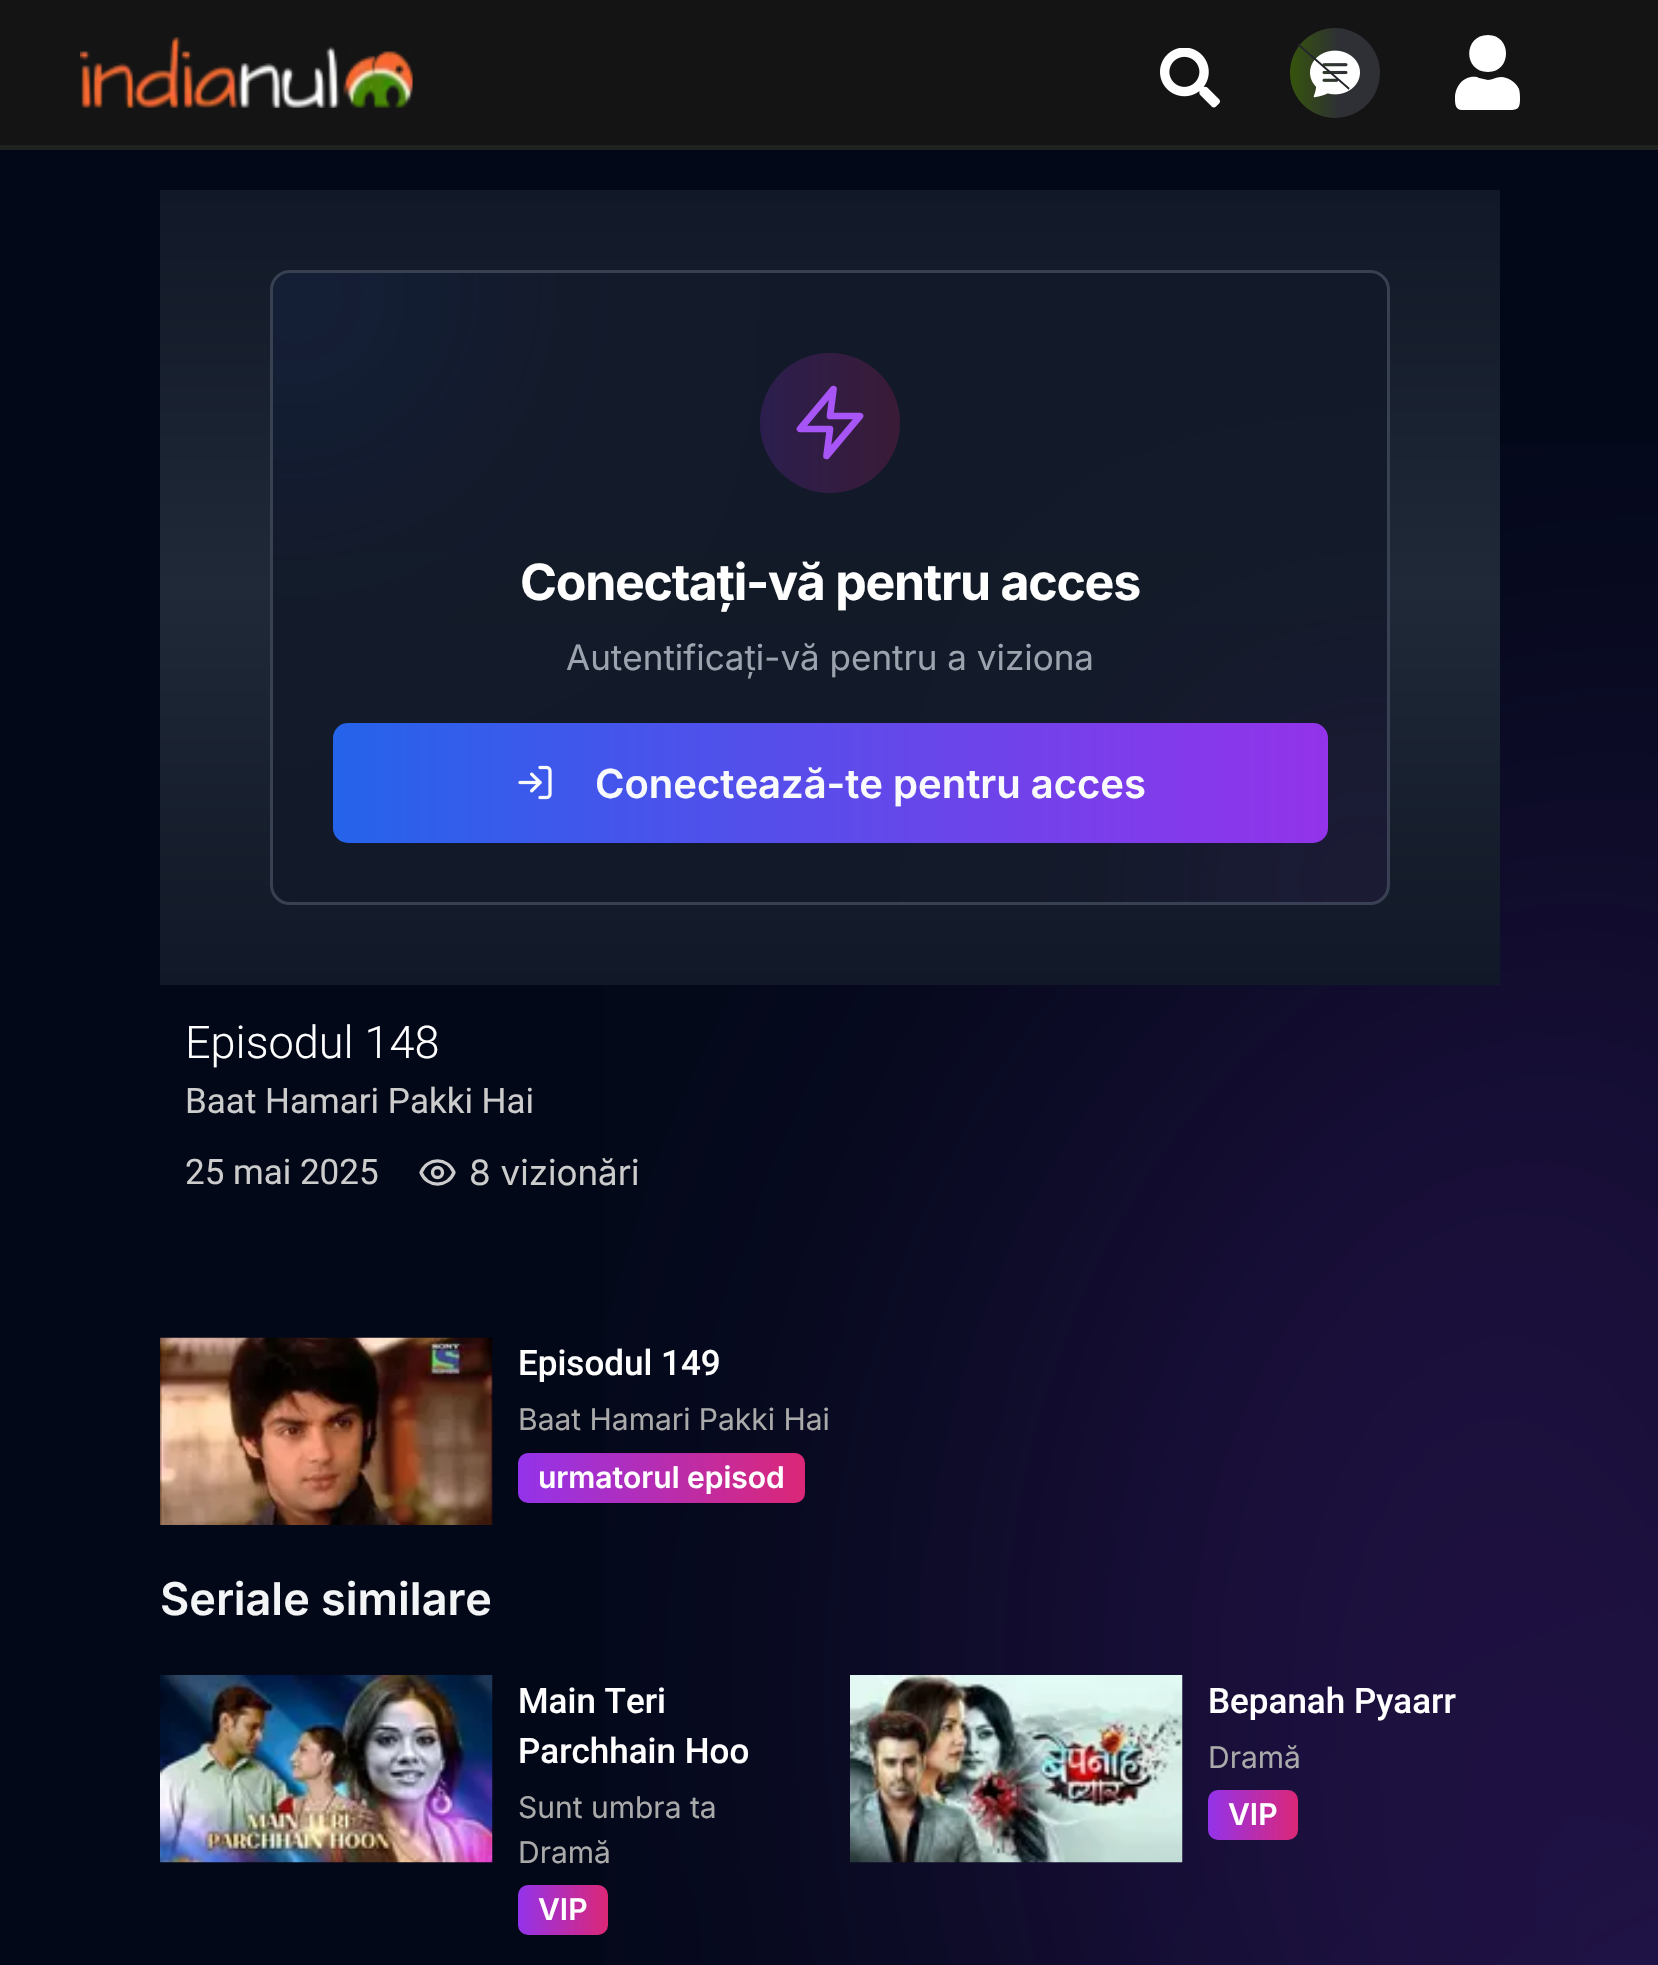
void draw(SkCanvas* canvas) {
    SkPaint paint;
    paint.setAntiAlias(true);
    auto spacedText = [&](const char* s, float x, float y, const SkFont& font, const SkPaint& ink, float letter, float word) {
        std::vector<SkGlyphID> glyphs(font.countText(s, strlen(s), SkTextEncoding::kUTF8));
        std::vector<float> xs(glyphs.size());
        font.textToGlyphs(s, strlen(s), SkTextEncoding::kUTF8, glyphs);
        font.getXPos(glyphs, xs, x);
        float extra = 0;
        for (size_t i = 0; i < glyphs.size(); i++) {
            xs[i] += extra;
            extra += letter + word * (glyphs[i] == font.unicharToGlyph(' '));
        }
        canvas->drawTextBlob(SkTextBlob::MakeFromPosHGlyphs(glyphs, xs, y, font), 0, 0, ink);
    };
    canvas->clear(0xFF020817);
    canvas->drawImageRect(SkImages::DeferredFromEncodedData(SkData::MakeFromFileName("img1.png")), SkRect::MakeXYWH(604, 444, 1054, 1521), SkSamplingOptions());
    {
        const SkColor colors[] = {0xFF111827, 0xFF1F2937, 0xFF111827};
        const float stops[] = {0, 0.5f, 1};
        const SkPoint ends[] = {{830, 190}, {830, 985}};
        paint.setShader(SkGradientShader::MakeLinear(ends, colors, stops, 3, SkTileMode::kClamp));
        paint.setAlpha(255);
    }
    canvas->drawRect(SkRect::MakeXYWH(160, 190, 1340, 795), paint);
    paint.setShader(nullptr);
    paint.setColor(0xF2111827);
    canvas->drawRoundRect(SkRect::MakeXYWH(271.5f, 271.5f, 1117, 632), 18.5f, 18.5f, paint);
    paint.setStyle(SkPaint::kStroke_Style);
    paint.setStrokeWidth(3);
    paint.setColor(0xFF374151);
    canvas->drawRoundRect(SkRect::MakeXYWH(271.5f, 271.5f, 1117, 632), 18.5f, 18.5f, paint);
    canvas->save();
    canvas->clipPath(SkPathBuilder().moveTo(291, 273).lineTo(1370, 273).cubicTo(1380, 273, 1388, 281, 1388, 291).lineTo(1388, 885).cubicTo(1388, 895, 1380, 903, 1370, 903).lineTo(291, 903).cubicTo(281, 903, 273, 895, 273, 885).lineTo(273, 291).cubicTo(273, 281, 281, 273, 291, 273).close().detach(), true);
    paint.setStyle(SkPaint::kFill_Style);
    paint.setColor(0x1A2563EB);
    paint.setMaskFilter(SkMaskFilter::MakeBlur(kNormal_SkBlurStyle, 160));
    canvas->drawRoundRect(SkRect::MakeXYWH(73, 73, 400, 400), 200, 200, paint);
    paint.setMaskFilter(nullptr);
    canvas->restore();
    paint.setColor(0xFF141414);
    canvas->drawRect(SkRect::MakeXYWH(0, 0, 1658, 145), paint);
    paint.setColor(0xFF202121);
    canvas->drawRect(SkRect::MakeXYWH(0, 145, 1658, 5), paint);
    canvas->drawImageRect(SkImages::DeferredFromEncodedData(SkData::MakeFromFileName("img2.png")), SkRect::MakeXYWH(80, 37, 333, 71), SkSamplingOptions());
    canvas->drawImageRect(SkImages::DeferredFromEncodedData(SkData::MakeFromFileName("img3.png")), SkRect::MakeXYWH(1160, 48, 60, 60), SkSamplingOptions());
    {
        const SkColor colors[] = {0xFF36540C, 0xFF2E3035, 0xFF2E3035};
        const float stops[] = {0, 0.55f, 1};
        const SkPoint ends[] = {{1290, 73}, {1380, 73}};
        paint.setShader(SkGradientShader::MakeLinear(ends, colors, stops, 3, SkTileMode::kClamp));
        paint.setAlpha(255);
    }
    canvas->drawCircle(1335, 73, 45, paint);
    canvas->drawImageRect(SkImages::DeferredFromEncodedData(SkData::MakeFromFileName("img4.png")), SkRect::MakeXYWH(1310, 50, 50, 48), SkSamplingOptions());
    SkFont font1(fontMgr->matchFamilyStyle("Inter", SkFontStyle(100, SkFontStyle::kNormal_Width, SkFontStyle::kUpright_Slant)), 75);
    font1.setSubpixel(true);
    paint.setShader(nullptr);
    paint.setColor(0xFF24262B);
    canvas->save();
    canvas->rotate(116, 1307, 45);
    canvas->drawString("/", 1307, 45, font1, paint);
    canvas->restore();
    paint.setColor(0xFFFFFFFF);
    canvas->drawPath(SkPathBuilder().moveTo(1488, 72).cubicTo(1512, 72, 1512, 35, 1488, 35).cubicTo(1463, 35, 1463, 72, 1488, 72).close().moveTo(1501, 77).cubicTo(1496, 77, 1492, 80, 1488, 80).lineTo(1479, 78).lineTo(1477, 77).cubicTo(1464, 75, 1455, 86, 1455, 98).cubicTo(1455, 103, 1455, 110, 1462, 110).lineTo(1505, 110).cubicTo(1515, 110, 1520, 111, 1520, 100).cubicTo(1520, 96, 1520, 93, 1519, 89).cubicTo(1516, 82, 1508, 77, 1501, 77).close().detach(), paint);
    canvas->save();
    canvas->clipPath(SkPathBuilder().moveTo(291, 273).lineTo(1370, 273).cubicTo(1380, 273, 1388, 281, 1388, 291).lineTo(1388, 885).cubicTo(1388, 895, 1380, 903, 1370, 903).lineTo(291, 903).cubicTo(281, 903, 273, 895, 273, 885).lineTo(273, 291).cubicTo(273, 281, 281, 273, 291, 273).close().detach(), true);
    paint.setColor(0x1A9333EA);
    paint.setMaskFilter(SkMaskFilter::MakeBlur(kNormal_SkBlurStyle, 160));
    canvas->drawRoundRect(SkRect::MakeXYWH(1188, 703, 400, 400), 200, 200, paint);
    paint.setMaskFilter(nullptr);
    canvas->restore();
    {
        const SkColor colors[] = {0xFF2B1E4E, 0xFF3A1B37};
        const float stops[] = {0, 1};
        const SkPoint ends[] = {{760, 423}, {900, 423}};
        paint.setShader(SkGradientShader::MakeLinear(ends, colors, stops, 2, SkTileMode::kClamp));
        paint.setAlpha(255);
    }
    canvas->drawCircle(830, 423, 70, paint);
    paint.setStyle(SkPaint::kStroke_Style);
    paint.setStrokeWidth(6.7f);
    paint.setStrokeCap(SkPaint::kRound_Cap);
    paint.setStrokeJoin(SkPaint::kRound_Join);
    paint.setShader(nullptr);
    paint.setColor(0xFFA855F7);
    canvas->drawPath(SkPathBuilder().moveTo(833.5f, 389).lineTo(800, 429).lineTo(830, 429).lineTo(826.5f, 456).lineTo(860, 416).lineTo(830, 416).close().detach(), paint);
    SkFont font2(fontMgr->matchFamilyStyle("Inter", SkFontStyle::Bold()), 50);
    font2.setSubpixel(true);
    paint.setStyle(SkPaint::kFill_Style);
    paint.setColor(0xFFFFFFFF);
    spacedText("Conectați-vă pentru acces", 520, 600, font2, paint, -1.25f, 0);
    SkFont font3(fontMgr->matchFamilyStyle("Inter", SkFontStyle::Normal()), 35);
    font3.setSubpixel(true);
    paint.setColor(0xFF9CA3AF);
    canvas->drawString("Autentificați-vă pentru a viziona", 566, 670, font3, paint);
    {
        const SkColor colors[] = {0xFF2563EB, 0xFF9333EA};
        const float stops[] = {0, 1};
        const SkPoint ends[] = {{333, 783}, {1328, 783}};
        paint.setShader(SkGradientShader::MakeLinear(ends, colors, stops, 2, SkTileMode::kClamp));
        paint.setAlpha(255);
    }
    canvas->drawRoundRect(SkRect::MakeXYWH(333, 723, 995, 120), 15, 15, paint);
    canvas->drawImageRect(SkImages::DeferredFromEncodedData(SkData::MakeFromFileName("img5.png")), SkRect::MakeXYWH(518, 765, 34, 35), SkSamplingOptions());
    SkFont font4(fontMgr->matchFamilyStyle("Inter", SkFontStyle(600, SkFontStyle::kNormal_Width, SkFontStyle::kUpright_Slant)), 40);
    font4.setSubpixel(true);
    paint.setShader(nullptr);
    paint.setColor(0xFFF9FAFB);
    canvas->drawString("Conectează-te pentru acces", 595, 798, font4, paint);
    SkFont font5(fontMgr->matchFamilyStyle("Roboto", SkFontStyle(300, SkFontStyle::kNormal_Width, SkFontStyle::kUpright_Slant)), 45);
    font5.setSubpixel(true);
    paint.setColor(0xFFFFFFFF);
    canvas->drawString("Episodul 148", 185, 1058, font5, paint);
    SkFont font6(fontMgr->matchFamilyStyle("Roboto", SkFontStyle::Normal()), 35);
    font6.setSubpixel(true);
    paint.setColor(0xFFCCCCCC);
    canvas->drawString("Baat Hamari Pakki Hai", 185, 1113, font6, paint);
    canvas->drawString("25 mai 2025", 185, 1184, font6, paint);
    paint.setStyle(SkPaint::kStroke_Style);
    paint.setStrokeWidth(3.3f);
    canvas->drawPath(SkPathBuilder().moveTo(421, 1172.5f).cubicTo(427.5f, 1157, 447.5f, 1157, 454, 1172.5f).cubicTo(447.5f, 1188, 427.5f, 1188, 421, 1172.5f).close().detach(), paint);
    paint.setStrokeCap(SkPaint::kButt_Cap);
    paint.setStrokeJoin(SkPaint::kMiter_Join);
    canvas->drawCircle(437.5f, 1172.5f, 5, paint);
    paint.setStyle(SkPaint::kFill_Style);
    canvas->drawString("8 vizionări", 469, 1185, font3, paint);
    canvas->drawImageRect(SkImages::DeferredFromEncodedData(SkData::MakeFromFileName("img6.png")), SkRect::MakeXYWH(160, 1337, 333, 188), SkSamplingOptions());
    SkFont font7(fontMgr->matchFamilyStyle("Roboto", SkFontStyle(500, SkFontStyle::kNormal_Width, SkFontStyle::kUpright_Slant)), 35);
    font7.setSubpixel(true);
    paint.setColor(0xFFFFFFFF);
    canvas->drawString("Episodul 149", 518, 1375, font7, paint);
    SkFont font8(fontMgr->matchFamilyStyle("Inter", SkFontStyle::Normal()), 30);
    font8.setSubpixel(true);
    paint.setColor(0xFFAAAAAA);
    canvas->drawString("Baat Hamari Pakki Hai", 518, 1430, font8, paint);
    {
        const SkColor colors[] = {0xFF9333EA, 0xFFDB2777};
        const float stops[] = {0, 1};
        const SkPoint ends[] = {{518, 1478}, {805, 1478}};
        paint.setShader(SkGradientShader::MakeLinear(ends, colors, stops, 2, SkTileMode::kClamp));
        paint.setAlpha(255);
    }
    canvas->drawRoundRect(SkRect::MakeXYWH(518, 1453, 287, 50), 10, 10, paint);
    SkFont font9(fontMgr->matchFamilyStyle("Inter", SkFontStyle(600, SkFontStyle::kNormal_Width, SkFontStyle::kUpright_Slant)), 30);
    font9.setSubpixel(true);
    paint.setShader(nullptr);
    paint.setColor(0xFFFFFFFF);
    canvas->drawString("urmatorul episod", 538, 1488, font9, paint);
    SkFont font10(fontMgr->matchFamilyStyle("Inter", SkFontStyle(600, SkFontStyle::kNormal_Width, SkFontStyle::kUpright_Slant)), 45);
    font10.setSubpixel(true);
    paint.setColor(0xFFF3F4F6);
    canvas->drawString("Seriale similare", 160, 1615, font10, paint);
    canvas->drawImageRect(SkImages::DeferredFromEncodedData(SkData::MakeFromFileName("img7.png")), SkRect::MakeXYWH(160, 1675, 333, 188), SkSamplingOptions());
    paint.setColor(0xFFFFFFFF);
    canvas->drawString("Main Teri", 518, 1713, font7, paint);
    canvas->drawString("Parchhain Hoo", 518, 1763, font7, paint);
    paint.setColor(0xFFAAAAAA);
    canvas->drawString("Sunt umbra ta", 518, 1818, font8, paint);
    canvas->drawString("Dramă", 518, 1863, font8, paint);
    {
        const SkColor colors[] = {0xFF9333EA, 0xFFDB2777};
        const float stops[] = {0, 1};
        const SkPoint ends[] = {{518, 1910}, {608, 1910}};
        paint.setShader(SkGradientShader::MakeLinear(ends, colors, stops, 2, SkTileMode::kClamp));
        paint.setAlpha(255);
    }
    canvas->drawRoundRect(SkRect::MakeXYWH(518, 1885, 90, 50), 10, 10, paint);
    paint.setShader(nullptr);
    paint.setColor(0xFFFFFFFF);
    canvas->drawString("VIP", 538, 1920, font9, paint);
    canvas->drawImageRect(SkImages::DeferredFromEncodedData(SkData::MakeFromFileName("img8.png")), SkRect::MakeXYWH(850, 1675, 333, 188), SkSamplingOptions());
    canvas->drawString("Bepanah Pyaarr", 1208, 1713, font7, paint);
    paint.setColor(0xFFAAAAAA);
    canvas->drawString("Dramă", 1208, 1768, font8, paint);
    {
        const SkColor colors[] = {0xFF9333EA, 0xFFDB2777};
        const float stops[] = {0, 1};
        const SkPoint ends[] = {{1208, 1815}, {1298, 1815}};
        paint.setShader(SkGradientShader::MakeLinear(ends, colors, stops, 2, SkTileMode::kClamp));
        paint.setAlpha(255);
    }
    canvas->drawRoundRect(SkRect::MakeXYWH(1208, 1790, 90, 50), 10, 10, paint);
    paint.setShader(nullptr);
    paint.setColor(0xFFFFFFFF);
    canvas->drawString("VIP", 1228, 1825, font9, paint);
}
